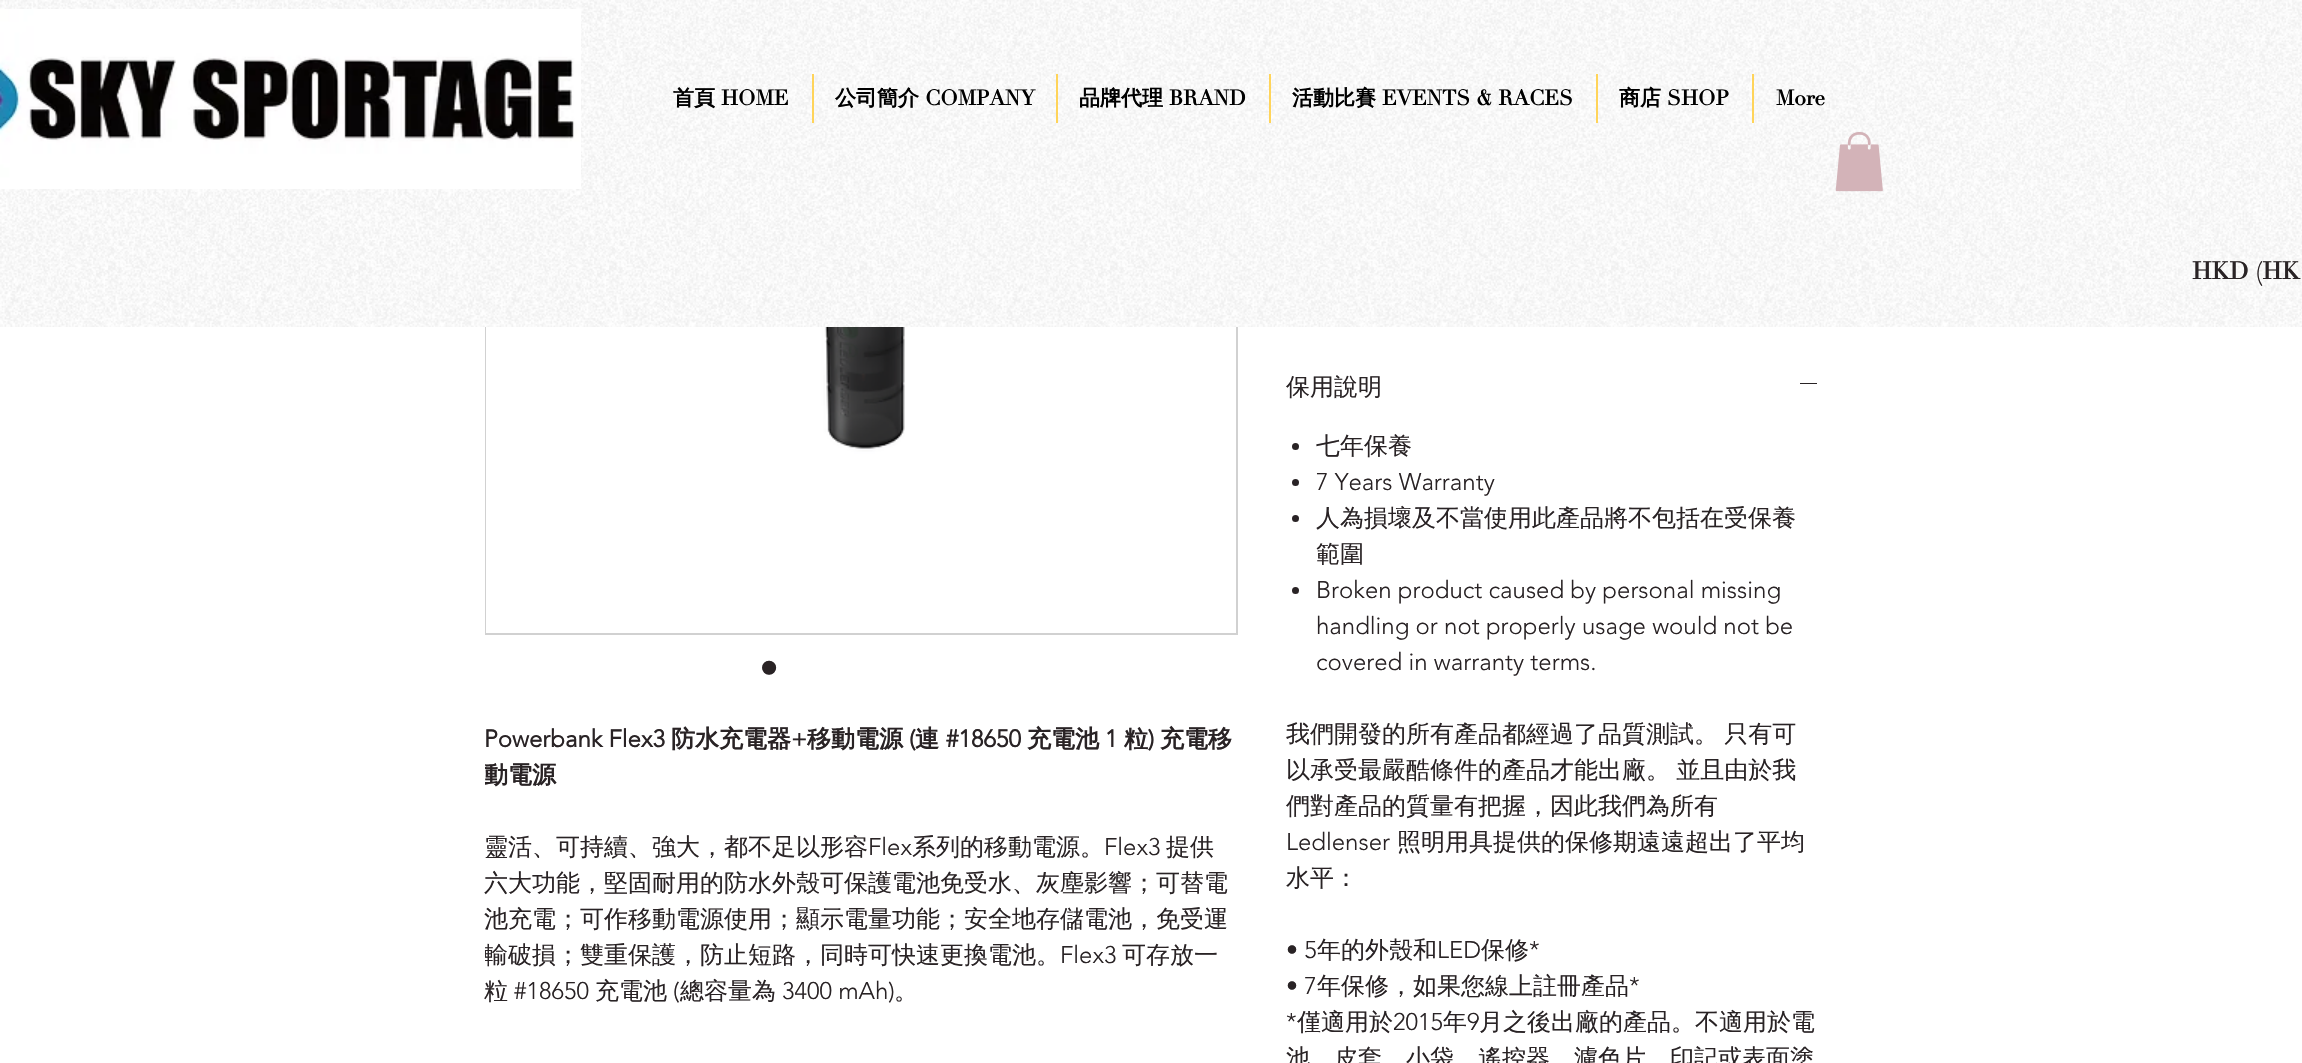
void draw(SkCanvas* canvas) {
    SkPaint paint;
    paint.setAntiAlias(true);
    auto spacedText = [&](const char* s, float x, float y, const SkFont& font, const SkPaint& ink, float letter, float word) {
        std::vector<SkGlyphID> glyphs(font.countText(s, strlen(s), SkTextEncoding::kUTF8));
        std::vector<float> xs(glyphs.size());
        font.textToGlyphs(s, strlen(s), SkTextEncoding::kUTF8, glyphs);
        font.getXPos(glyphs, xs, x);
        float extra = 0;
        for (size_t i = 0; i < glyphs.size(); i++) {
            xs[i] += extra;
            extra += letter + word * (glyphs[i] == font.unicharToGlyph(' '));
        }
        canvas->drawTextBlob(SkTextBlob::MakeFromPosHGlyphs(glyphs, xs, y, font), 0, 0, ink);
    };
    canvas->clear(0xFFFFFFFF);
    paint.setStyle(SkPaint::kStroke_Style);
    paint.setStrokeWidth(2);
    paint.setColor(0xFFD1D1D1);
    canvas->drawRect(SkRect::MakeXYWH(486, -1, 751, 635), paint);
    paint.setStyle(SkPaint::kFill_Style);
    paint.setColor(0xFFFFFFFF);
    canvas->drawRect(SkRect::MakeXYWH(485, 0, 753, 327), paint);
    canvas->drawImageRect(SkImages::DeferredFromEncodedData(SkData::MakeFromFileName("img1.png")), SkRect::MakeXYWH(0, 0, 2302, 327), SkSamplingOptions());
    canvas->drawImageRect(SkImages::DeferredFromEncodedData(SkData::MakeFromFileName("img2.png")), SkRect::MakeXYWH(0, 9, 581, 180), SkSamplingOptions());
    SkFont font1(fontMgr->matchFamilyStyle("WenQuanYi Zen Hei", SkFontStyle::Bold()), 21);
    font1.setSubpixel(true);
    paint.setColor(0xFF000000);
    canvas->drawString("首頁", 673, 105, font1, paint);
    SkFont font2(fontMgr->matchFamilyStyle("Didot", SkFontStyle::Bold()), 21);
    font2.setSubpixel(true);
    canvas->drawString("HOME", 721, 105, font2, paint);
    paint.setColor(0xFFFFD45A);
    canvas->drawRect(SkRect::MakeXYWH(812, 74, 2, 49), paint);
    paint.setColor(0xFF000000);
    canvas->drawString("公司簡介", 835, 105, font1, paint);
    canvas->drawString("COMPANY", 925, 105, font2, paint);
    paint.setColor(0xFFFFD45A);
    canvas->drawRect(SkRect::MakeXYWH(1056, 74, 2, 49), paint);
    paint.setColor(0xFF000000);
    canvas->drawString("品牌代理", 1079, 105, font1, paint);
    canvas->drawString("BRAND", 1169, 105, font2, paint);
    paint.setColor(0xFFFFD45A);
    canvas->drawRect(SkRect::MakeXYWH(1269, 74, 2, 49), paint);
    paint.setColor(0xFF000000);
    canvas->drawString("活動比賽", 1292, 105, font1, paint);
    canvas->drawString("EVENTS & RACES", 1382, 105, font2, paint);
    paint.setColor(0xFFFFD45A);
    canvas->drawRect(SkRect::MakeXYWH(1596, 74, 2, 49), paint);
    paint.setColor(0xFF000000);
    canvas->drawString("商店", 1619, 105, font1, paint);
    canvas->drawString("SHOP", 1667, 105, font2, paint);
    paint.setColor(0xFFFFD45A);
    canvas->drawRect(SkRect::MakeXYWH(1752, 74, 2, 49), paint);
    paint.setColor(0xFF000000);
    canvas->drawString("More", 1776, 105, font2, paint);
    canvas->drawImageRect(SkImages::DeferredFromEncodedData(SkData::MakeFromFileName("img3.png")), SkRect::MakeXYWH(1835, 132, 48, 60), SkSamplingOptions());
    SkFont font3(fontMgr->matchFamilyStyle("Didot", SkFontStyle::Bold()), 24);
    font3.setSubpixel(true);
    paint.setColor(0xFF292325);
    canvas->drawString("HKD (HK", 2192, 279, font3, paint);
    canvas->drawImageRect(SkImages::DeferredFromEncodedData(SkData::MakeFromFileName("img4.png")), SkRect::MakeXYWH(486, 327, 419, 306), SkSamplingOptions());
    SkFont font4(fontMgr->matchFamilyStyle("Liberation Sans", SkFontStyle::Normal()), 52);
    font4.setSubpixel(true);
    canvas->drawString("•", 760, 685, font4, paint);
    SkFont font5(fontMgr->matchFamilyStyle("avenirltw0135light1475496", SkFontStyle::Bold()), 24);
    font5.setSubpixel(true);
    canvas->drawString("Powerbank Flex3", 484, 747, font5, paint);
    SkFont font6(fontMgr->matchFamilyStyle("WenQuanYi Zen Hei", SkFontStyle::Bold()), 24);
    font6.setSubpixel(true);
    canvas->drawString("防水充電器", 671, 747, font6, paint);
    canvas->drawString("+", 791, 747, font5, paint);
    canvas->drawString("移動電源", 807, 747, font6, paint);
    canvas->drawString("(", 909, 747, font5, paint);
    canvas->drawString("連", 915, 747, font6, paint);
    canvas->drawString("#18650", 946, 747, font5, paint);
    canvas->drawString("充電池", 1027, 747, font6, paint);
    canvas->drawString("1", 1105, 747, font5, paint);
    canvas->drawString("粒", 1124, 747, font6, paint);
    canvas->drawString(")", 1148, 747, font5, paint);
    canvas->drawString("充電移", 1160, 747, font6, paint);
    canvas->save();
    canvas->clipRect(SkRect::MakeXYWH(485, 722, 750, 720));
    canvas->drawString("動電源", 484, 783, font6, paint);
    canvas->restore();
    SkFont font7(fontMgr->matchFamilyStyle("WenQuanYi Zen Hei", SkFontStyle(500, SkFontStyle::kNormal_Width, SkFontStyle::kUpright_Slant)), 24);
    font7.setSubpixel(true);
    canvas->drawString("靈活、可持續、強大，都不足以形容", 484, 855, font7, paint);
    SkFont font8(fontMgr->matchFamilyStyle("avenirltw0135light1475496", SkFontStyle(300, SkFontStyle::kNormal_Width, SkFontStyle::kUpright_Slant)), 24);
    font8.setSubpixel(true);
    canvas->drawString("Flex", 868, 855, font8, paint);
    canvas->drawString("系列的移動電源。", 912, 855, font7, paint);
    canvas->drawString("Flex3", 1104, 855, font8, paint);
    canvas->drawString("提供", 1166, 855, font7, paint);
    canvas->drawString("六大功能，堅固耐用的防水外殼可保護電池免受水、灰塵影響；可替電", 484, 891, font7, paint);
    canvas->drawString("池充電；可作移動電源使用；顯示電量功能；安全地存儲電池，免受運", 484, 927, font7, paint);
    canvas->save();
    canvas->clipRect(SkRect::MakeXYWH(485, 722, 750, 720));
    canvas->drawString("輸破損；雙重保護，防止短路，同時可快速更換電池。", 484, 963, font7, paint);
    canvas->restore();
    canvas->drawString("Flex3", 1060, 963, font8, paint);
    canvas->drawString("可存放一", 1122, 963, font7, paint);
    canvas->drawString("粒", 484, 999, font7, paint);
    canvas->drawString("#18650", 514, 999, font8, paint);
    canvas->drawString("充電池", 595, 999, font7, paint);
    canvas->drawString("(", 673, 999, font8, paint);
    canvas->drawString("總容量為", 680, 999, font7, paint);
    canvas->drawString("3400 mAh)", 782, 999, font8, paint);
    canvas->drawString("。", 894, 999, font7, paint);
    canvas->drawString("保用說明", 1286, 395, font7, paint);
    canvas->drawRect(SkRect::MakeXYWH(1800, 383, 17, 1), paint);
    canvas->drawCircle(1295.5f, 446.5f, 3.5f, paint);
    canvas->drawString("七年保養", 1316, 454, font7, paint);
    canvas->drawCircle(1295.5f, 482.5f, 3.5f, paint);
    canvas->drawString("7 Years Warranty", 1316, 490, font8, paint);
    canvas->drawCircle(1295.5f, 518.5f, 3.5f, paint);
    canvas->drawString("人為損壞及不當使用此產品將不包括在受保養", 1316, 526, font7, paint);
    canvas->drawString("範圍", 1316, 562, font7, paint);
    canvas->drawCircle(1295.5f, 590.5f, 3.5f, paint);
    canvas->drawString("Broken product caused by personal missing", 1316, 598, font8, paint);
    canvas->drawString("handling or not properly usage would not be", 1316, 634, font8, paint);
    canvas->drawString("covered in warranty terms.", 1316, 670, font8, paint);
    spacedText("我們開發的所有產品都經過了品質測試。 只有可", 1286, 742, font7, paint, 0, -1);
    spacedText("以承受最嚴酷條件的產品才能出廠。 並且由於我", 1286, 778, font7, paint, 0, -1);
    canvas->drawString("們對產品的質量有把握，因此我們為所有", 1286, 814, font7, paint);
    canvas->drawString("Ledlenser", 1286, 850, font8, paint);
    canvas->drawString("照明用具提供的保修期遠遠超出了平均", 1397, 850, font7, paint);
    canvas->drawString("水平：", 1286, 886, font7, paint);
    canvas->drawString("• 5", 1286, 958, font8, paint);
    canvas->drawString("年的外殼和", 1317, 958, font7, paint);
    canvas->drawString("LED", 1437, 958, font8, paint);
    canvas->drawString("保修", 1481, 958, font7, paint);
    canvas->drawString("*", 1529, 958, font8, paint);
    canvas->drawString("• 7", 1286, 994, font8, paint);
    canvas->drawString("年保修，如果您線上註冊產品", 1317, 994, font7, paint);
    canvas->drawString("*", 1629, 994, font8, paint);
    canvas->drawString("*", 1286, 1030, font8, paint);
    canvas->drawString("僅適用於", 1297, 1030, font7, paint);
    canvas->drawString("2015", 1393, 1030, font8, paint);
    canvas->drawString("年", 1443, 1030, font7, paint);
    canvas->drawString("9", 1467, 1030, font8, paint);
    canvas->drawString("月之後出廠的產品。不適用於電", 1479, 1030, font7, paint);
    canvas->drawString("池，皮套，小袋，遙控器，濾色片，印記或表面塗", 1286, 1066, font7, paint);
}
